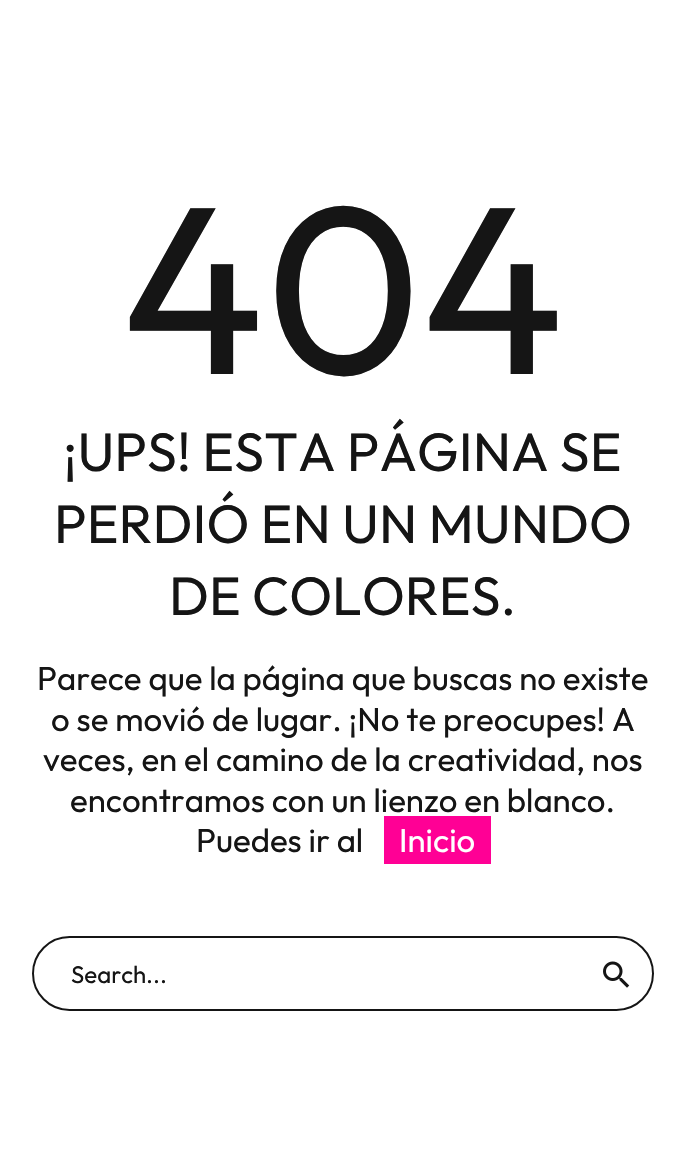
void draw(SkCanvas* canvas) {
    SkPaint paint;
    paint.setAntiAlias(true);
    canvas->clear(0xFFFFFFFF);
    SkFont font1(fontMgr->matchFamilyStyle("Outfit", SkFontStyle::Normal()), 239);
    font1.setSubpixel(true);
    paint.setColor(0xFF151515);
    canvas->drawString("404", 122, 374, font1, paint);
    SkFont font2(fontMgr->matchFamilyStyle("Outfit", SkFontStyle::Normal()), 54);
    font2.setSubpixel(true);
    canvas->drawString("¡UPS! ESTA PÁGINA SE", 63, 471, font2, paint);
    canvas->drawString("PERDIÓ EN UN MUNDO", 54, 543, font2, paint);
    canvas->drawString("DE COLORES.", 169, 615, font2, paint);
    SkFont font3(fontMgr->matchFamilyStyle("Outfit", SkFontStyle::Normal()), 33);
    font3.setSubpixel(true);
    canvas->drawString("Parece que la página que buscas no existe", 37, 690, font3, paint);
    canvas->drawString("o se movió de lugar. ¡No te preocupes! A", 51, 731, font3, paint);
    canvas->drawString("veces, en el camino de la creatividad, nos", 43, 771, font3, paint);
    canvas->drawString("encontramos con un lienzo en blanco.", 70, 812, font3, paint);
    canvas->drawString("Puedes ir al", 196, 852, font3, paint);
    paint.setColor(0xFFFF0095);
    canvas->drawRect(SkRect::MakeXYWH(384, 816, 107, 48), paint);
    paint.setColor(0xFFFFFFFF);
    canvas->drawString("Inicio", 399, 852, font3, paint);
    paint.setStyle(SkPaint::kStroke_Style);
    paint.setStrokeWidth(2);
    paint.setColor(0xFF151515);
    canvas->drawRoundRect(SkRect::MakeXYWH(33, 937, 620, 73), 36.5f, 36.5f, paint);
    SkFont font4(fontMgr->matchFamilyStyle("Outfit", SkFontStyle::Normal()), 24);
    font4.setSubpixel(true);
    paint.setStyle(SkPaint::kFill_Style);
    canvas->drawString("Search...", 71, 983, font4, paint);
    canvas->drawImageRect(SkImages::DeferredFromEncodedData(SkData::MakeFromFileName("img1.png")), SkRect::MakeXYWH(603, 961, 27, 27), SkSamplingOptions());
}
